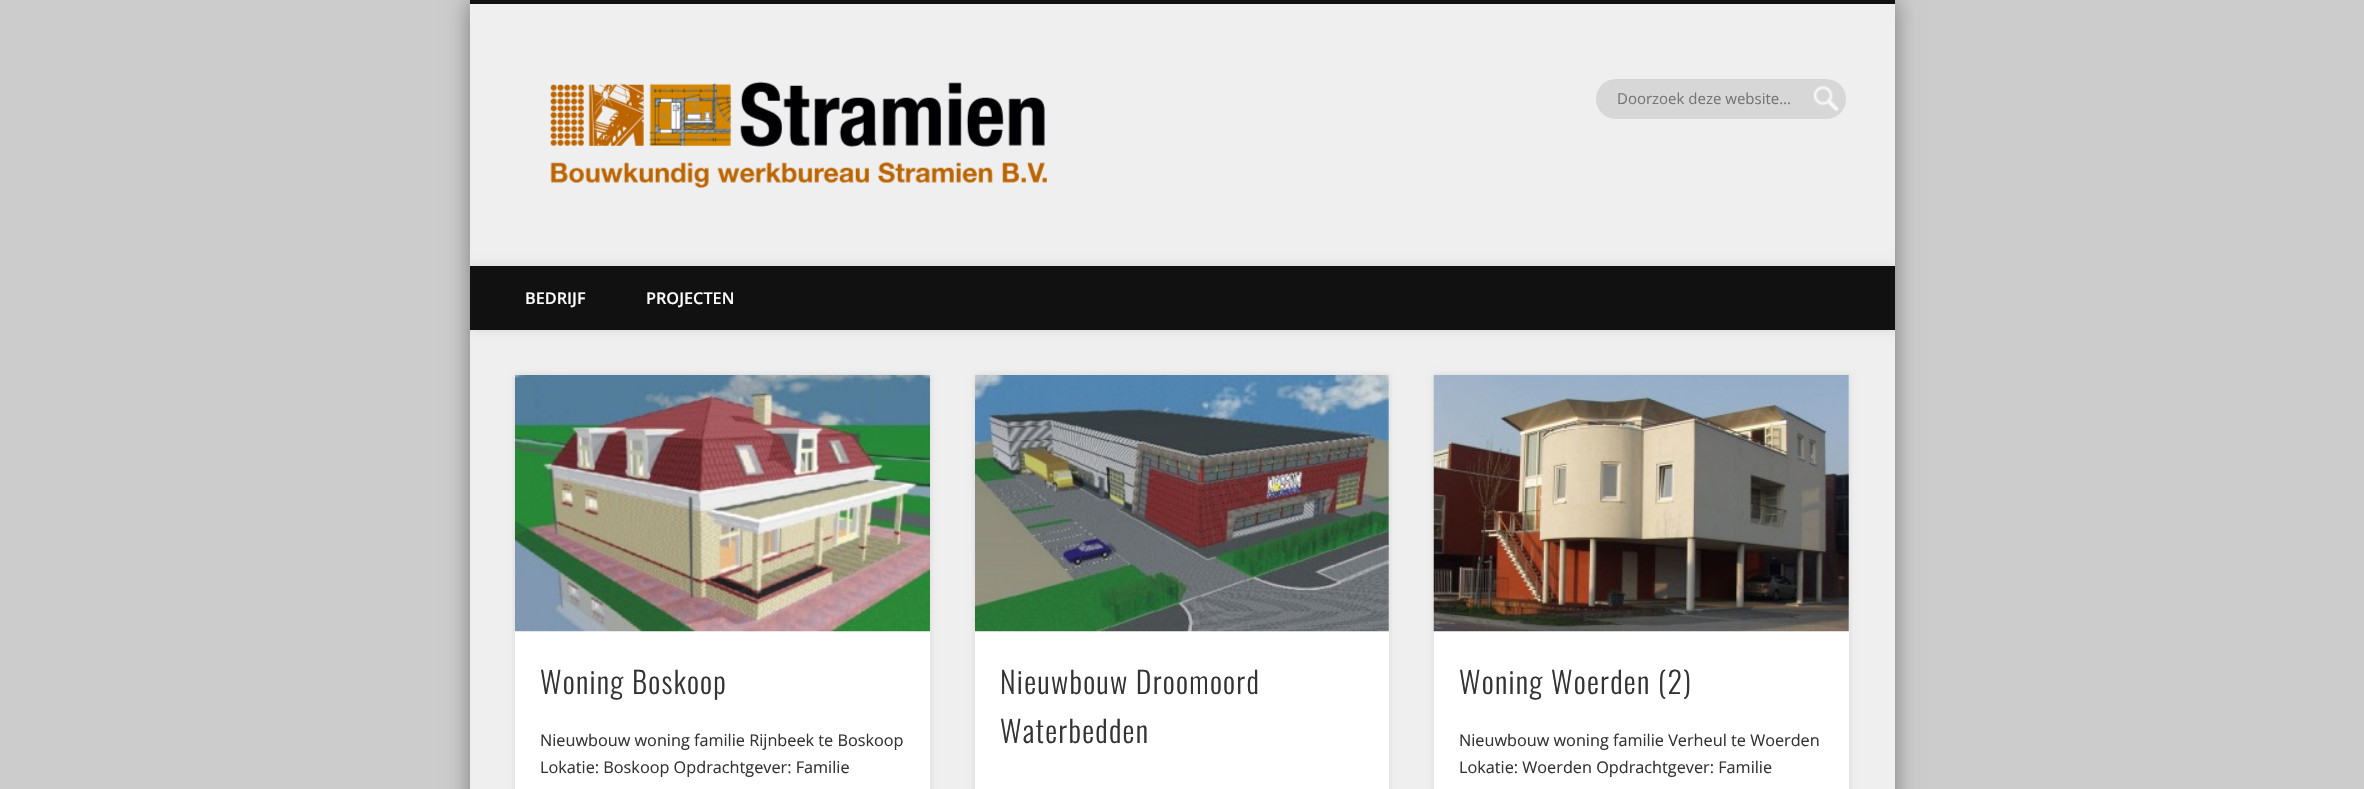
void draw(SkCanvas* canvas) {
    SkPaint paint;
    paint.setAntiAlias(true);
    auto spacedText = [&](const char* s, float x, float y, const SkFont& font, const SkPaint& ink, float letter, float word) {
        std::vector<SkGlyphID> glyphs(font.countText(s, strlen(s), SkTextEncoding::kUTF8));
        std::vector<float> xs(glyphs.size());
        font.textToGlyphs(s, strlen(s), SkTextEncoding::kUTF8, glyphs);
        font.getXPos(glyphs, xs, x);
        float extra = 0;
        for (size_t i = 0; i < glyphs.size(); i++) {
            xs[i] += extra;
            extra += letter + word * (glyphs[i] == font.unicharToGlyph(' '));
        }
        canvas->drawTextBlob(SkTextBlob::MakeFromPosHGlyphs(glyphs, xs, y, font), 0, 0, ink);
    };
    canvas->clear(0xFFCCCCCC);
    paint.setColor(0x66000000);
    paint.setMaskFilter(SkMaskFilter::MakeBlur(kNormal_SkBlurStyle, 11));
    canvas->drawRect(SkRect::MakeXYWH(470, 0, 1425, 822), paint);
    paint.setMaskFilter(nullptr);
    paint.setColor(0xFFEFEFEF);
    canvas->drawRect(SkRect::MakeXYWH(470, 4, 1425, 785), paint);
    paint.setColor(0xFF111111);
    canvas->drawRect(SkRect::MakeXYWH(470, 0, 1425, 4), paint);
    canvas->drawImageRect(SkImages::DeferredFromEncodedData(SkData::MakeFromFileName("img1.png")), SkRect::MakeXYWH(550, 81, 497, 107), SkSamplingOptions());
    paint.setColor(0xFFD7D7D7);
    canvas->drawRoundRect(SkRect::MakeXYWH(1596, 79, 250, 40), 20, 20, paint);
    canvas->drawImageRect(SkImages::DeferredFromEncodedData(SkData::MakeFromFileName("img2.png")), SkRect::MakeXYWH(1813, 86, 26, 26), SkSamplingOptions());
    SkFont font1(fontMgr->matchFamilyStyle("Open Sans", SkFontStyle::Normal()), 15);
    font1.setSubpixel(true);
    paint.setColor(0xFF757575);
    canvas->drawString("Doorzoek deze website…", 1617, 104, font1, paint);
    canvas->save();
    canvas->clipRect(SkRect::MakeXYWH(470, 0, 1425, 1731));
    paint.setColor(0x1A000000);
    paint.setMaskFilter(SkMaskFilter::MakeBlur(kNormal_SkBlurStyle, 4.5f));
    canvas->drawRect(SkRect::MakeXYWH(470, 266, 1425, 64), paint);
    paint.setMaskFilter(nullptr);
    canvas->restore();
    paint.setColor(0xFF111111);
    canvas->drawRect(SkRect::MakeXYWH(470, 266, 1425, 64), paint);
    SkFont font2(fontMgr->matchFamilyStyle("Open Sans", SkFontStyle(600, SkFontStyle::kNormal_Width, SkFontStyle::kUpright_Slant)), 16.25f);
    font2.setSubpixel(true);
    paint.setColor(0xFFFFFFFF);
    canvas->drawString("BEDRIJF", 525, 304, font2, paint);
    canvas->drawString("PROJECTEN", 646, 304, font2, paint);
    paint.setColor(0x1A000000);
    paint.setMaskFilter(SkMaskFilter::MakeBlur(kNormal_SkBlurStyle, 3));
    canvas->drawRect(SkRect::MakeXYWH(515, 375, 415, 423), paint);
    paint.setMaskFilter(nullptr);
    paint.setColor(0xFFFFFFFF);
    canvas->drawRect(SkRect::MakeXYWH(515, 631, 415, 158), paint);
    canvas->drawImageRect(SkImages::DeferredFromEncodedData(SkData::MakeFromFileName("img3.png")), SkRect::MakeXYWH(515, 375, 415, 257), SkSamplingOptions());
    SkFont font3(fontMgr->matchFamilyStyle("Oswald", SkFontStyle(300, SkFontStyle::kNormal_Width, SkFontStyle::kUpright_Slant)), 30);
    font3.setSubpixel(true);
    paint.setColor(0xFF333333);
    spacedText("Woning Boskoop", 540, 694, font3, paint, 1.25f, 0);
    SkFont font4(fontMgr->matchFamilyStyle("Open Sans", SkFontStyle::Normal()), 16.25f);
    font4.setSubpixel(true);
    canvas->drawString("Nieuwbouw woning familie Rijnbeek te Boskoop", 540, 746, font4, paint);
    canvas->drawString("Lokatie: Boskoop Opdrachtgever: Familie", 540, 773, font4, paint);
    paint.setColor(0x1A000000);
    paint.setMaskFilter(SkMaskFilter::MakeBlur(kNormal_SkBlurStyle, 3));
    canvas->drawRect(SkRect::MakeXYWH(975, 375, 414, 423), paint);
    paint.setMaskFilter(nullptr);
    paint.setColor(0xFFFFFFFF);
    canvas->drawRect(SkRect::MakeXYWH(975, 375, 414, 414), paint);
    canvas->drawImageRect(SkImages::DeferredFromEncodedData(SkData::MakeFromFileName("img4.png")), SkRect::MakeXYWH(975, 375, 414, 257), SkSamplingOptions());
    paint.setColor(0xFF333333);
    spacedText("Nieuwbouw Droomoord", 1000, 694, font3, paint, 1.25f, 0);
    spacedText("Waterbedden", 1000, 743, font3, paint, 1.25f, 0);
    paint.setColor(0x1A000000);
    paint.setMaskFilter(SkMaskFilter::MakeBlur(kNormal_SkBlurStyle, 3));
    canvas->drawRect(SkRect::MakeXYWH(1434, 375, 415, 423), paint);
    paint.setMaskFilter(nullptr);
    paint.setColor(0xFFFFFFFF);
    canvas->drawRect(SkRect::MakeXYWH(1434, 375, 415, 414), paint);
    canvas->drawImageRect(SkImages::DeferredFromEncodedData(SkData::MakeFromFileName("img5.png")), SkRect::MakeXYWH(1433, 375, 416, 257), SkSamplingOptions());
    paint.setColor(0xFF333333);
    spacedText("Woning Woerden (2)", 1459, 694, font3, paint, 1.25f, 0);
    canvas->drawString("Nieuwbouw woning familie Verheul te Woerden", 1459, 746, font4, paint);
    canvas->drawString("Lokatie: Woerden Opdrachtgever: Familie", 1459, 773, font4, paint);
}
